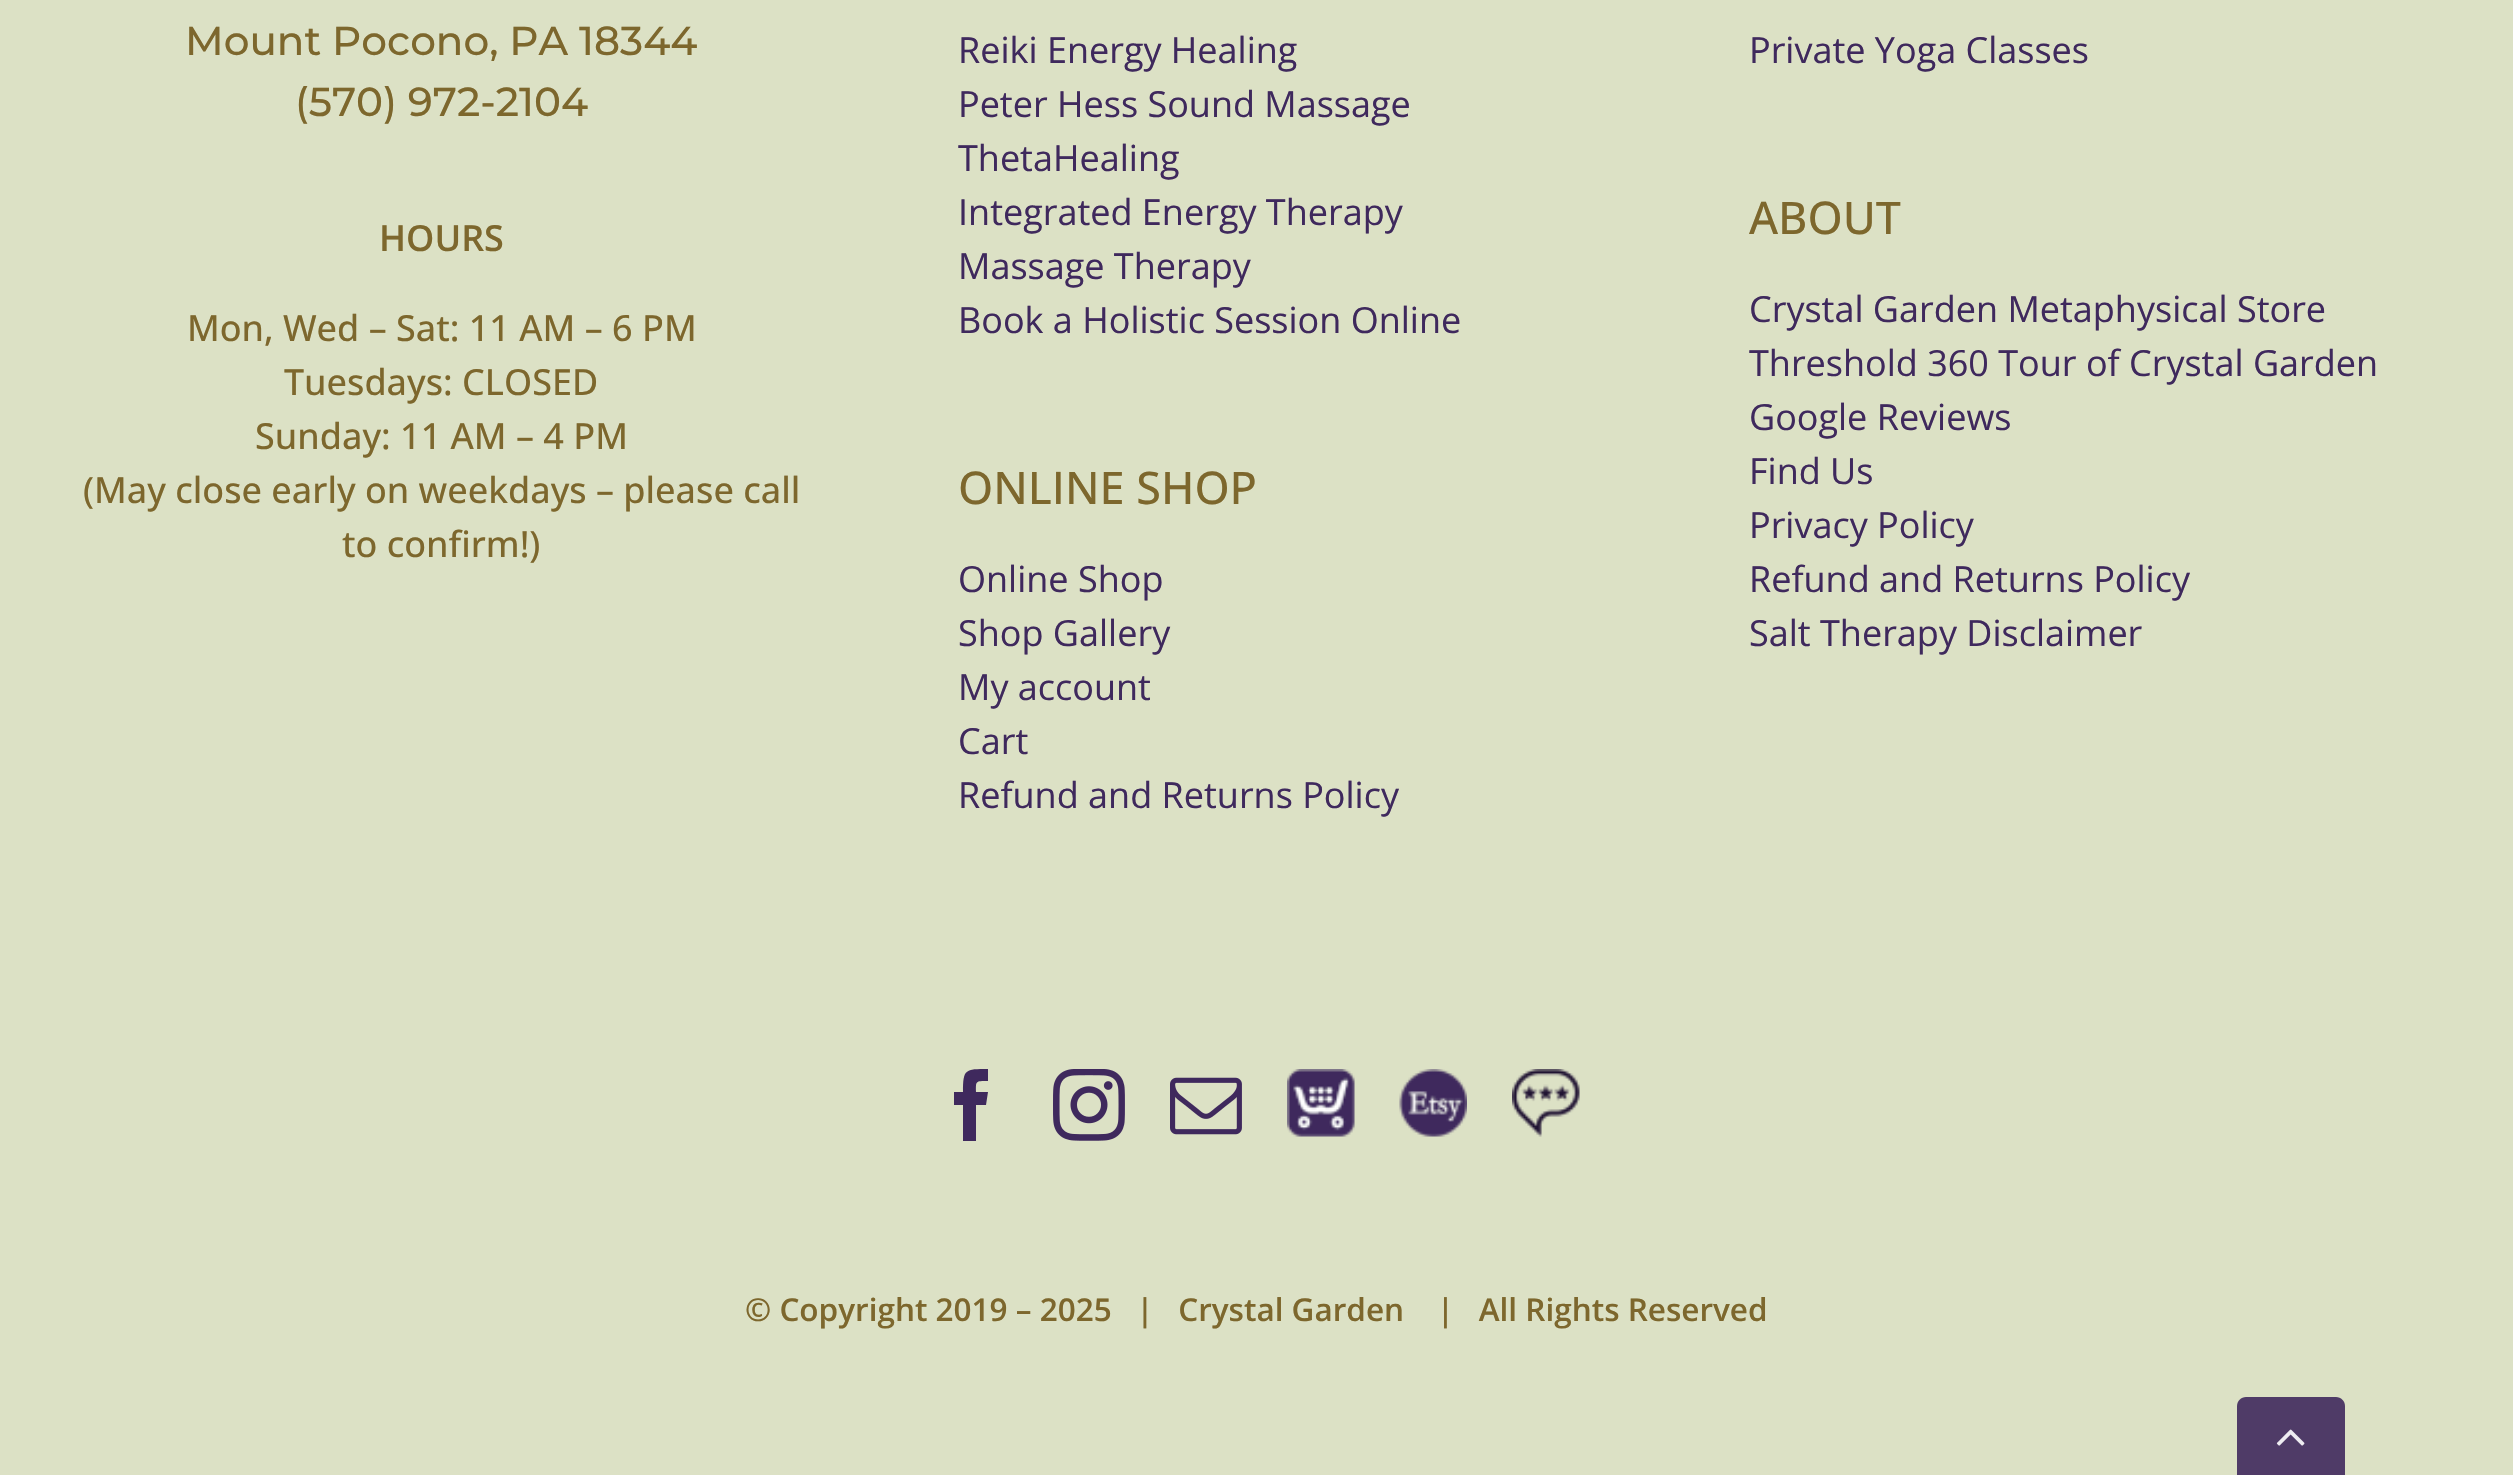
void draw(SkCanvas* canvas) {
    SkPaint paint;
    paint.setAntiAlias(true);
    canvas->clear(0xFFDCE1C5);
    SkFont font1(fontMgr->matchFamilyStyle("Montserrat", SkFontStyle(500, SkFontStyle::kNormal_Width, SkFontStyle::kUpright_Slant)), 40.5f);
    font1.setSubpixel(true);
    paint.setColor(0xFF7D672D);
    canvas->drawString("Mount Pocono, PA 18344", 185, 55, font1, paint);
    canvas->drawString("(570) 972-2104", 295, 116, font1, paint);
    SkFont font2(fontMgr->matchFamilyStyle("Open Sans", SkFontStyle(600, SkFontStyle::kNormal_Width, SkFontStyle::kUpright_Slant)), 36);
    font2.setSubpixel(true);
    canvas->drawString("HOURS", 379, 251, font2, paint);
    SkFont font3(fontMgr->matchFamilyStyle("Open Sans", SkFontStyle(500, SkFontStyle::kNormal_Width, SkFontStyle::kUpright_Slant)), 36);
    font3.setSubpixel(true);
    canvas->drawString("Mon, Wed – Sat: 11 AM – 6 PM", 187, 341, font3, paint);
    canvas->drawString("Tuesdays: CLOSED", 284, 395, font3, paint);
    canvas->drawString("Sunday: 11 AM – 4 PM", 255, 449, font3, paint);
    canvas->drawString("(May close early on weekdays – please call", 83, 503, font3, paint);
    canvas->drawString("to confirm!)", 342, 557, font3, paint);
    SkFont font4(fontMgr->matchFamilyStyle("Open Sans", SkFontStyle::Normal()), 36);
    font4.setSubpixel(true);
    paint.setColor(0xFF3F295D);
    canvas->drawString("Reiki Energy Healing", 958, 63, font4, paint);
    canvas->drawString("Peter Hess Sound Massage", 958, 117, font4, paint);
    canvas->drawString("ThetaHealing", 958, 171, font4, paint);
    canvas->drawString("Integrated Energy Therapy", 958, 225, font4, paint);
    canvas->drawString("Massage Therapy", 958, 279, font4, paint);
    canvas->drawString("Book a Holistic Session Online", 958, 333, font4, paint);
    SkFont font5(fontMgr->matchFamilyStyle("Open Sans", SkFontStyle(500, SkFontStyle::kNormal_Width, SkFontStyle::kUpright_Slant)), 45);
    font5.setSubpixel(true);
    paint.setColor(0xFF7D672D);
    canvas->drawString("ONLINE SHOP", 958, 504, font5, paint);
    paint.setColor(0xFF3F295D);
    canvas->drawString("Online Shop", 958, 592, font4, paint);
    canvas->drawString("Shop Gallery", 958, 646, font4, paint);
    canvas->drawString("My account", 958, 700, font4, paint);
    canvas->drawString("Cart", 958, 754, font4, paint);
    canvas->drawString("Refund and Returns Policy", 958, 808, font4, paint);
    canvas->drawString("Private Yoga Classes", 1749, 63, font4, paint);
    paint.setColor(0xFF7D672D);
    canvas->drawString("ABOUT", 1749, 234, font5, paint);
    paint.setColor(0xFF3F295D);
    canvas->drawString("Crystal Garden Metaphysical Store", 1749, 322, font4, paint);
    canvas->drawString("Threshold 360 Tour of Crystal Garden", 1749, 376, font4, paint);
    canvas->drawString("Google Reviews", 1749, 430, font4, paint);
    canvas->drawString("Find Us", 1749, 484, font4, paint);
    canvas->drawString("Privacy Policy", 1749, 538, font4, paint);
    canvas->drawString("Refund and Returns Policy", 1749, 592, font4, paint);
    canvas->drawString("Salt Therapy Disclaimer", 1749, 646, font4, paint);
    canvas->drawPath(SkPathBuilder().moveTo(976, 1141).lineTo(963, 1141).lineTo(963, 1105).lineTo(954, 1105).lineTo(954, 1092).lineTo(963, 1092).cubicTo(963, 1069, 965, 1069, 988, 1069).lineTo(988, 1081).cubicTo(975, 1081, 976, 1081, 976, 1092).lineTo(988, 1092).lineTo(986, 1105).lineTo(976, 1105).close().detach(), paint);
    canvas->drawImageRect(SkImages::DeferredFromEncodedData(SkData::MakeFromFileName("img1.png")), SkRect::MakeXYWH(1053, 1069, 72, 72), SkSamplingOptions());
    canvas->drawImageRect(SkImages::DeferredFromEncodedData(SkData::MakeFromFileName("img2.png")), SkRect::MakeXYWH(1170, 1077, 72, 58), SkSamplingOptions());
    canvas->drawImageRect(SkImages::DeferredFromEncodedData(SkData::MakeFromFileName("img3.png")), SkRect::MakeXYWH(1287, 1069, 68, 68), SkSamplingOptions());
    canvas->drawImageRect(SkImages::DeferredFromEncodedData(SkData::MakeFromFileName("img4.png")), SkRect::MakeXYWH(1399, 1069, 68, 68), SkSamplingOptions());
    canvas->drawImageRect(SkImages::DeferredFromEncodedData(SkData::MakeFromFileName("img5.png")), SkRect::MakeXYWH(1512, 1069, 68, 68), SkSamplingOptions());
    SkFont font6(fontMgr->matchFamilyStyle("Open Sans", SkFontStyle(600, SkFontStyle::kNormal_Width, SkFontStyle::kUpright_Slant)), 31.5f);
    font6.setSubpixel(true);
    paint.setColor(0xFF7D672D);
    canvas->drawString("© Copyright 2019 – 2025   |   Crystal Garden    |   All Rights Reserved", 745, 1321, font6, paint);
    paint.setColor(0xFF4F3B67);
    canvas->drawPath(SkPathBuilder().moveTo(2246, 1397).lineTo(2336, 1397).cubicTo(2341, 1397, 2345, 1401, 2345, 1406).lineTo(2345, 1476).lineTo(2237, 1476).lineTo(2237, 1406).cubicTo(2237, 1401, 2241, 1397, 2246, 1397).close().detach(), paint);
    canvas->drawImageRect(SkImages::DeferredFromEncodedData(SkData::MakeFromFileName("img6.png")), SkRect::MakeXYWH(2276, 1429, 29, 17), SkSamplingOptions());
}
